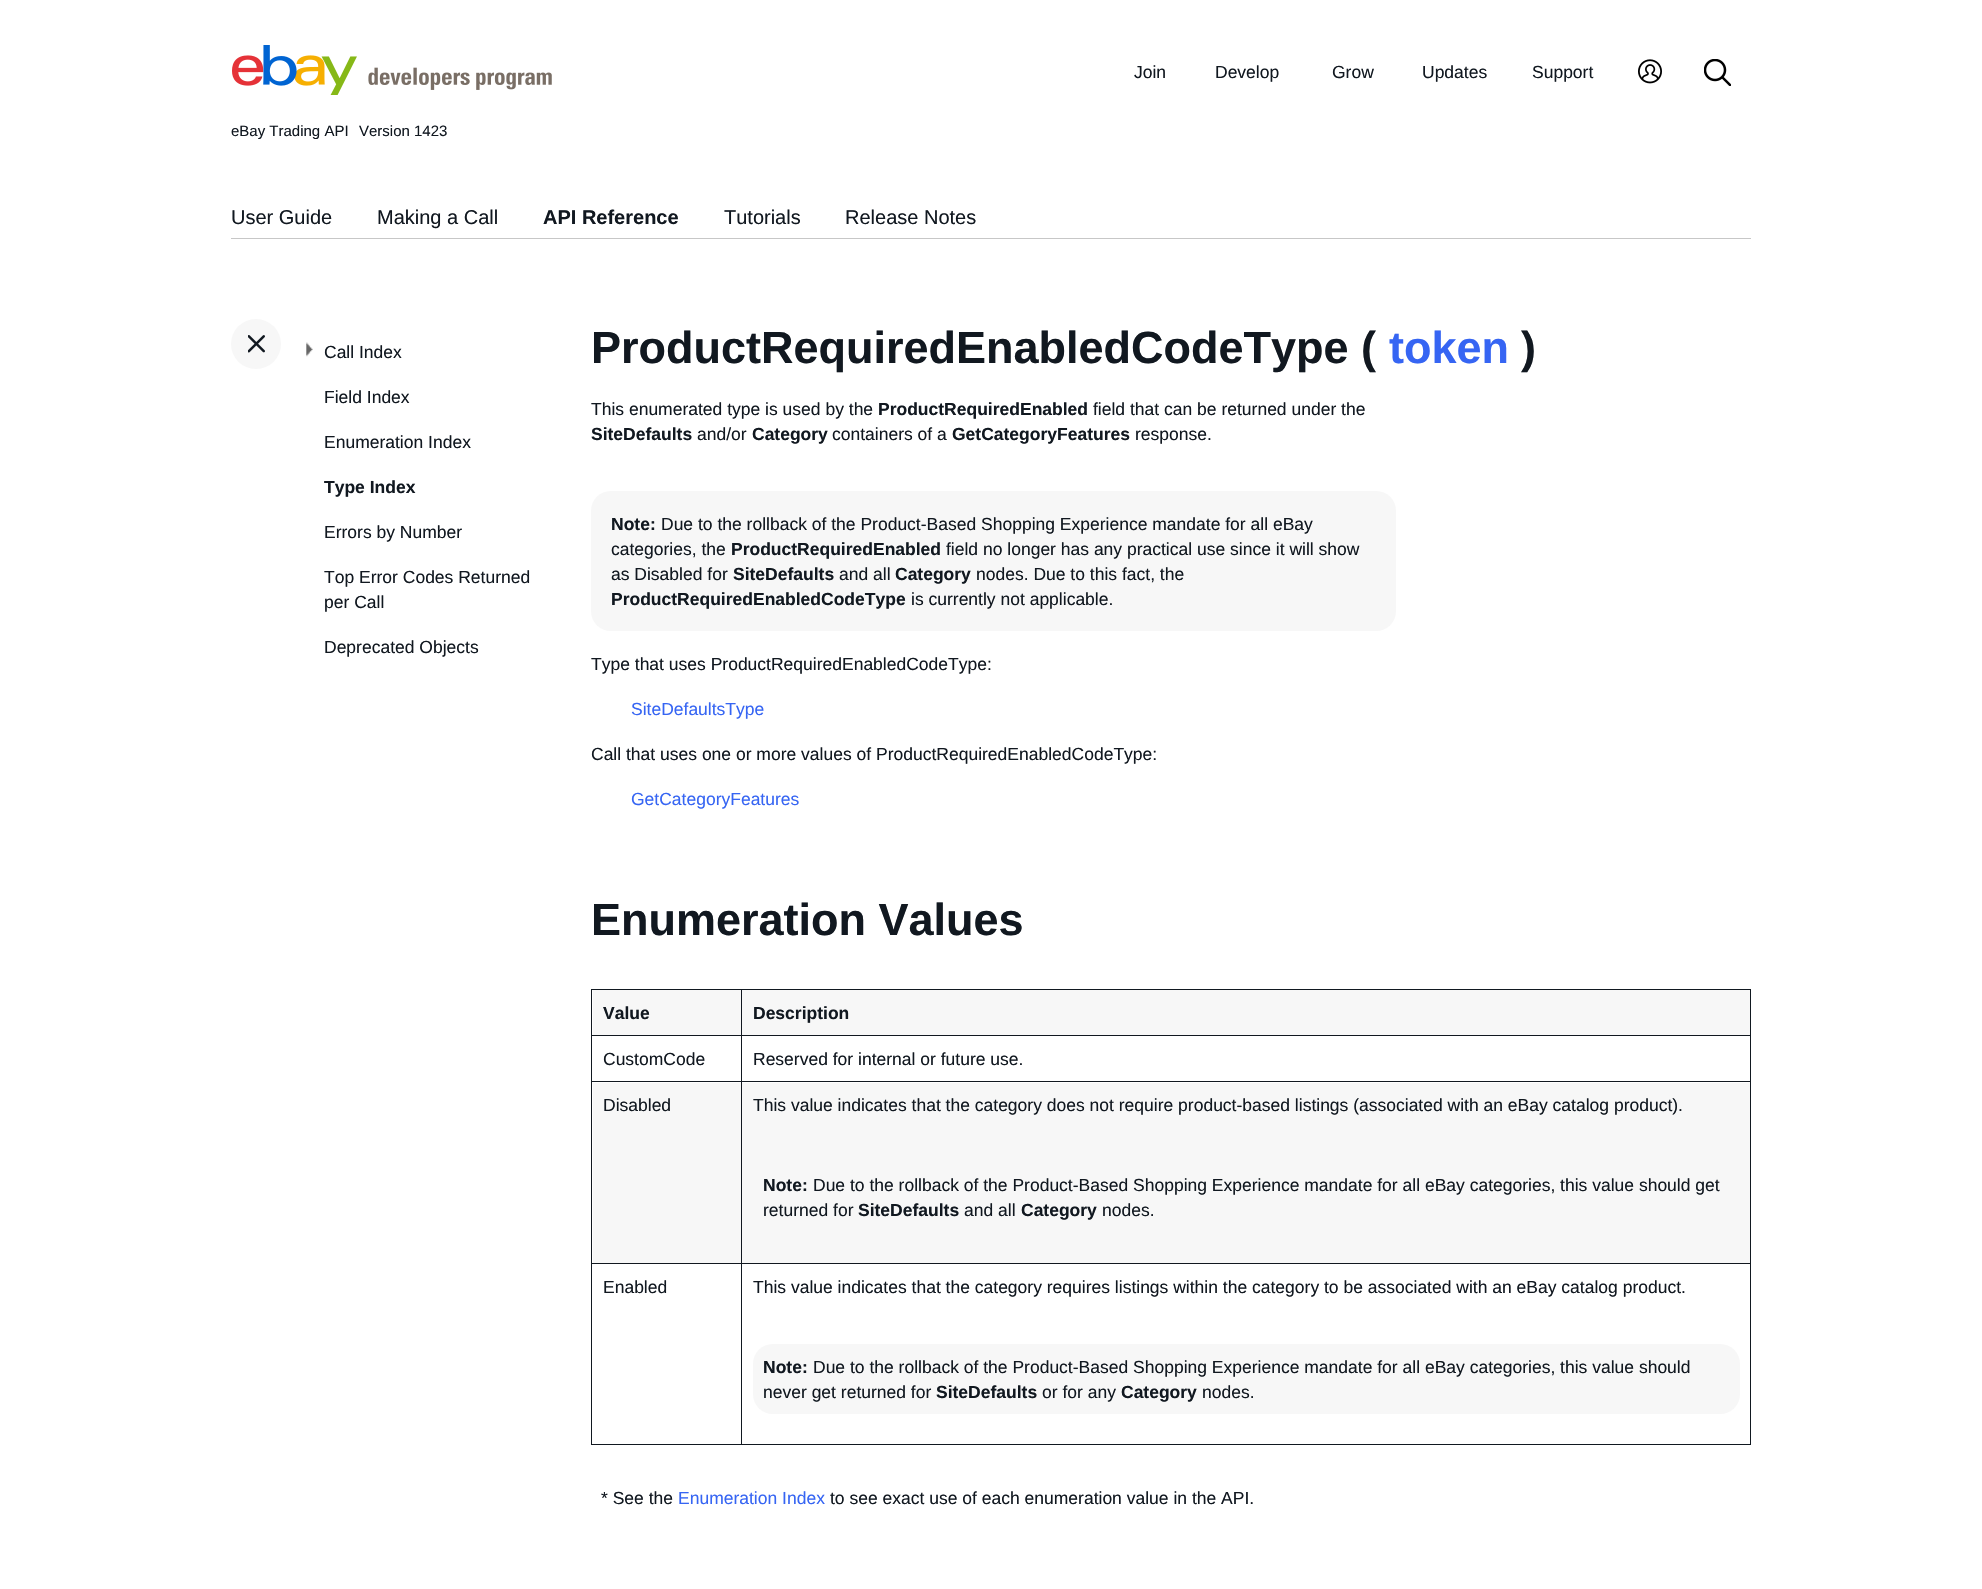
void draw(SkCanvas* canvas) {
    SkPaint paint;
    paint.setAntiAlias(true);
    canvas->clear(0xFFFFFFFF);
    canvas->drawImageRect(SkImages::DeferredFromEncodedData(SkData::MakeFromFileName("img1.png")), SkRect::MakeXYWH(232, 45, 320, 50), SkSamplingOptions());
    SkFont font1(fontMgr->matchFamilyStyle("Liberation Sans", SkFontStyle::Normal()), 17.5f);
    font1.setSubpixel(true);
    paint.setColor(0xFF111820);
    canvas->drawString("Join", 1134, 78, font1, paint);
    canvas->drawString("Develop", 1215, 78, font1, paint);
    canvas->drawString("Grow", 1332, 78, font1, paint);
    canvas->drawString("Updates", 1422, 78, font1, paint);
    canvas->drawString("Support", 1532, 78, font1, paint);
    canvas->drawImageRect(SkImages::DeferredFromEncodedData(SkData::MakeFromFileName("img2.png")), SkRect::MakeXYWH(1638, 59, 24, 25), SkSamplingOptions());
    canvas->drawImageRect(SkImages::DeferredFromEncodedData(SkData::MakeFromFileName("img3.png")), SkRect::MakeXYWH(1704, 59, 27, 27), SkSamplingOptions());
    SkFont font2(fontMgr->matchFamilyStyle("Liberation Sans", SkFontStyle::Normal()), 15);
    font2.setSubpixel(true);
    canvas->drawString("eBay Trading API", 231, 136, font2, paint);
    canvas->drawString("Version 1423", 359, 136, font2, paint);
    paint.setColor(0xFFC7C7C7);
    canvas->drawRect(SkRect::MakeXYWH(231, 238, 1520, 1), paint);
    SkFont font3(fontMgr->matchFamilyStyle("Liberation Sans", SkFontStyle::Normal()), 20);
    font3.setSubpixel(true);
    paint.setColor(0xFF111820);
    canvas->drawString("User Guide", 231, 224, font3, paint);
    canvas->drawString("Making a Call", 377, 224, font3, paint);
    SkFont font4(fontMgr->matchFamilyStyle("Liberation Sans", SkFontStyle::Bold()), 20);
    font4.setSubpixel(true);
    canvas->drawString("API Reference", 543, 224, font4, paint);
    canvas->drawString("Tutorials", 724, 224, font3, paint);
    canvas->drawString("Release Notes", 845, 224, font3, paint);
    paint.setColor(0xFFF7F7F7);
    canvas->drawCircle(256, 344, 25, paint);
    canvas->drawImageRect(SkImages::DeferredFromEncodedData(SkData::MakeFromFileName("img4.png")), SkRect::MakeXYWH(248, 335, 17, 18), SkSamplingOptions());
    canvas->drawImageRect(SkImages::DeferredFromEncodedData(SkData::MakeFromFileName("img5.png")), SkRect::MakeXYWH(306, 342, 7, 15), SkSamplingOptions());
    paint.setColor(0xFF111820);
    canvas->drawString("Call Index", 324, 358, font1, paint);
    canvas->drawString("Field Index", 324, 403, font1, paint);
    canvas->drawString("Enumeration Index", 324, 448, font1, paint);
    SkFont font5(fontMgr->matchFamilyStyle("Liberation Sans", SkFontStyle::Bold()), 17.5f);
    font5.setSubpixel(true);
    canvas->drawString("Type Index", 324, 493, font5, paint);
    canvas->drawString("Errors by Number", 324, 538, font1, paint);
    canvas->drawString("Top Error Codes Returned", 324, 583, font1, paint);
    canvas->drawString("per Call", 324, 608, font1, paint);
    canvas->drawString("Deprecated Objects", 324, 653, font1, paint);
    SkFont font6(fontMgr->matchFamilyStyle("Liberation Sans", SkFontStyle::Bold()), 45);
    font6.setSubpixel(true);
    canvas->drawString("ProductRequiredEnabledCodeType (", 591, 363, font6, paint);
    paint.setColor(0xFF3665F3);
    canvas->drawString("token", 1389, 363, font6, paint);
    paint.setColor(0xFF111820);
    canvas->drawString(")", 1521, 363, font6, paint);
    canvas->drawString("This enumerated type is used by the", 591, 415, font1, paint);
    canvas->drawString("ProductRequiredEnabled", 878, 415, font5, paint);
    canvas->drawString("field that can be returned under the", 1093, 415, font1, paint);
    canvas->drawString("SiteDefaults", 591, 440, font5, paint);
    canvas->drawString("and/or", 697, 440, font1, paint);
    canvas->drawString("Category", 752, 440, font5, paint);
    canvas->drawString("containers of a", 832, 440, font1, paint);
    canvas->drawString("GetCategoryFeatures", 952, 440, font5, paint);
    canvas->drawString("response.", 1135, 440, font1, paint);
    paint.setColor(0xFFF7F7F7);
    canvas->drawRoundRect(SkRect::MakeXYWH(591, 491, 805, 140), 20, 20, paint);
    paint.setColor(0xFF111820);
    canvas->drawString("Note:", 611, 530, font5, paint);
    canvas->drawString("Due to the rollback of the Product-Based Shopping Experience mandate for all eBay", 661, 530, font1, paint);
    canvas->drawString("categories, the", 611, 555, font1, paint);
    canvas->drawString("ProductRequiredEnabled", 731, 555, font5, paint);
    canvas->drawString("field no longer has any practical use since it will show", 946, 555, font1, paint);
    canvas->drawString("as Disabled for", 611, 580, font1, paint);
    canvas->drawString("SiteDefaults", 733, 580, font5, paint);
    canvas->drawString("and all", 839, 580, font1, paint);
    canvas->drawString("Category", 895, 580, font5, paint);
    canvas->drawString("nodes. Due to this fact, the", 976, 580, font1, paint);
    canvas->drawString("ProductRequiredEnabledCodeType", 611, 605, font5, paint);
    canvas->drawString("is currently not applicable.", 911, 605, font1, paint);
    canvas->drawString("Type that uses ProductRequiredEnabledCodeType:", 591, 670, font1, paint);
    paint.setColor(0xFF3665F3);
    canvas->drawString("SiteDefaultsType", 631, 715, font1, paint);
    paint.setColor(0xFF111820);
    canvas->drawString("Call that uses one or more values of ProductRequiredEnabledCodeType:", 591, 760, font1, paint);
    paint.setColor(0xFF3665F3);
    canvas->drawString("GetCategoryFeatures", 631, 805, font1, paint);
    paint.setColor(0xFF111820);
    canvas->drawString("Enumeration Values", 591, 935, font6, paint);
    canvas->drawRect(SkRect::MakeXYWH(591, 989, 1160, 1), paint);
    canvas->drawRect(SkRect::MakeXYWH(1750, 989, 1, 456), paint);
    canvas->drawRect(SkRect::MakeXYWH(591, 1444, 1160, 1), paint);
    canvas->drawRect(SkRect::MakeXYWH(591, 989, 1, 456), paint);
    paint.setColor(0xFFF7F7F7);
    canvas->drawRect(SkRect::MakeXYWH(593, 990, 1157, 45), paint);
    paint.setColor(0xFF111820);
    canvas->drawString("Value", 603, 1019, font5, paint);
    canvas->drawRect(SkRect::MakeXYWH(741, 1035, 1010, 1), paint);
    canvas->drawRect(SkRect::MakeXYWH(741, 1081, 1010, 1), paint);
    paint.setColor(0xFFF7F7F7);
    canvas->drawRect(SkRect::MakeXYWH(593, 1083, 1157, 180), paint);
    paint.setColor(0xFF111820);
    canvas->drawRect(SkRect::MakeXYWH(741, 1263, 1010, 1), paint);
    canvas->drawRect(SkRect::MakeXYWH(741, 1263, 1, 182), paint);
    canvas->drawRect(SkRect::MakeXYWH(591, 1263, 152, 1), paint);
    canvas->drawRect(SkRect::MakeXYWH(741, 1081, 1, 183), paint);
    canvas->drawRect(SkRect::MakeXYWH(591, 1081, 152, 1), paint);
    canvas->drawRect(SkRect::MakeXYWH(741, 1035, 1, 48), paint);
    canvas->drawRect(SkRect::MakeXYWH(591, 1035, 152, 1), paint);
    canvas->drawRect(SkRect::MakeXYWH(741, 989, 1, 47), paint);
    canvas->drawString("Description", 753, 1019, font5, paint);
    canvas->drawString("CustomCode", 603, 1065, font1, paint);
    canvas->drawString("Reserved for internal or future use.", 753, 1065, font1, paint);
    canvas->drawString("Disabled", 603, 1111, font1, paint);
    canvas->drawString("This value indicates that the category does not require product-based listings (associated with an eBay catalog product).", 753, 1111, font1, paint);
    canvas->drawString("Note:", 763, 1191, font5, paint);
    canvas->drawString("Due to the rollback of the Product-Based Shopping Experience mandate for all eBay categories, this value should get", 813, 1191, font1, paint);
    canvas->drawString("returned for", 763, 1216, font1, paint);
    canvas->drawString("SiteDefaults", 858, 1216, font5, paint);
    canvas->drawString("and all", 964, 1216, font1, paint);
    canvas->drawString("Category", 1021, 1216, font5, paint);
    canvas->drawString("nodes.", 1102, 1216, font1, paint);
    canvas->drawString("Enabled", 603, 1293, font1, paint);
    canvas->drawString("This value indicates that the category requires listings within the category to be associated with an eBay catalog product.", 753, 1293, font1, paint);
    paint.setColor(0xFFF7F7F7);
    canvas->drawRoundRect(SkRect::MakeXYWH(753, 1344, 987, 70), 20, 20, paint);
    paint.setColor(0xFF111820);
    canvas->drawString("Note:", 763, 1373, font5, paint);
    canvas->drawString("Due to the rollback of the Product-Based Shopping Experience mandate for all eBay categories, this value should", 813, 1373, font1, paint);
    canvas->drawString("never get returned for", 763, 1398, font1, paint);
    canvas->drawString("SiteDefaults", 936, 1398, font5, paint);
    canvas->drawString("or for any", 1042, 1398, font1, paint);
    canvas->drawString("Category", 1121, 1398, font5, paint);
    canvas->drawString("nodes.", 1202, 1398, font1, paint);
    canvas->drawString("* See the", 601, 1504, font1, paint);
    paint.setColor(0xFF3665F3);
    canvas->drawString("Enumeration Index", 678, 1504, font1, paint);
    paint.setColor(0xFF111820);
    canvas->drawString("to see exact use of each enumeration value in the API.", 830, 1504, font1, paint);
}
